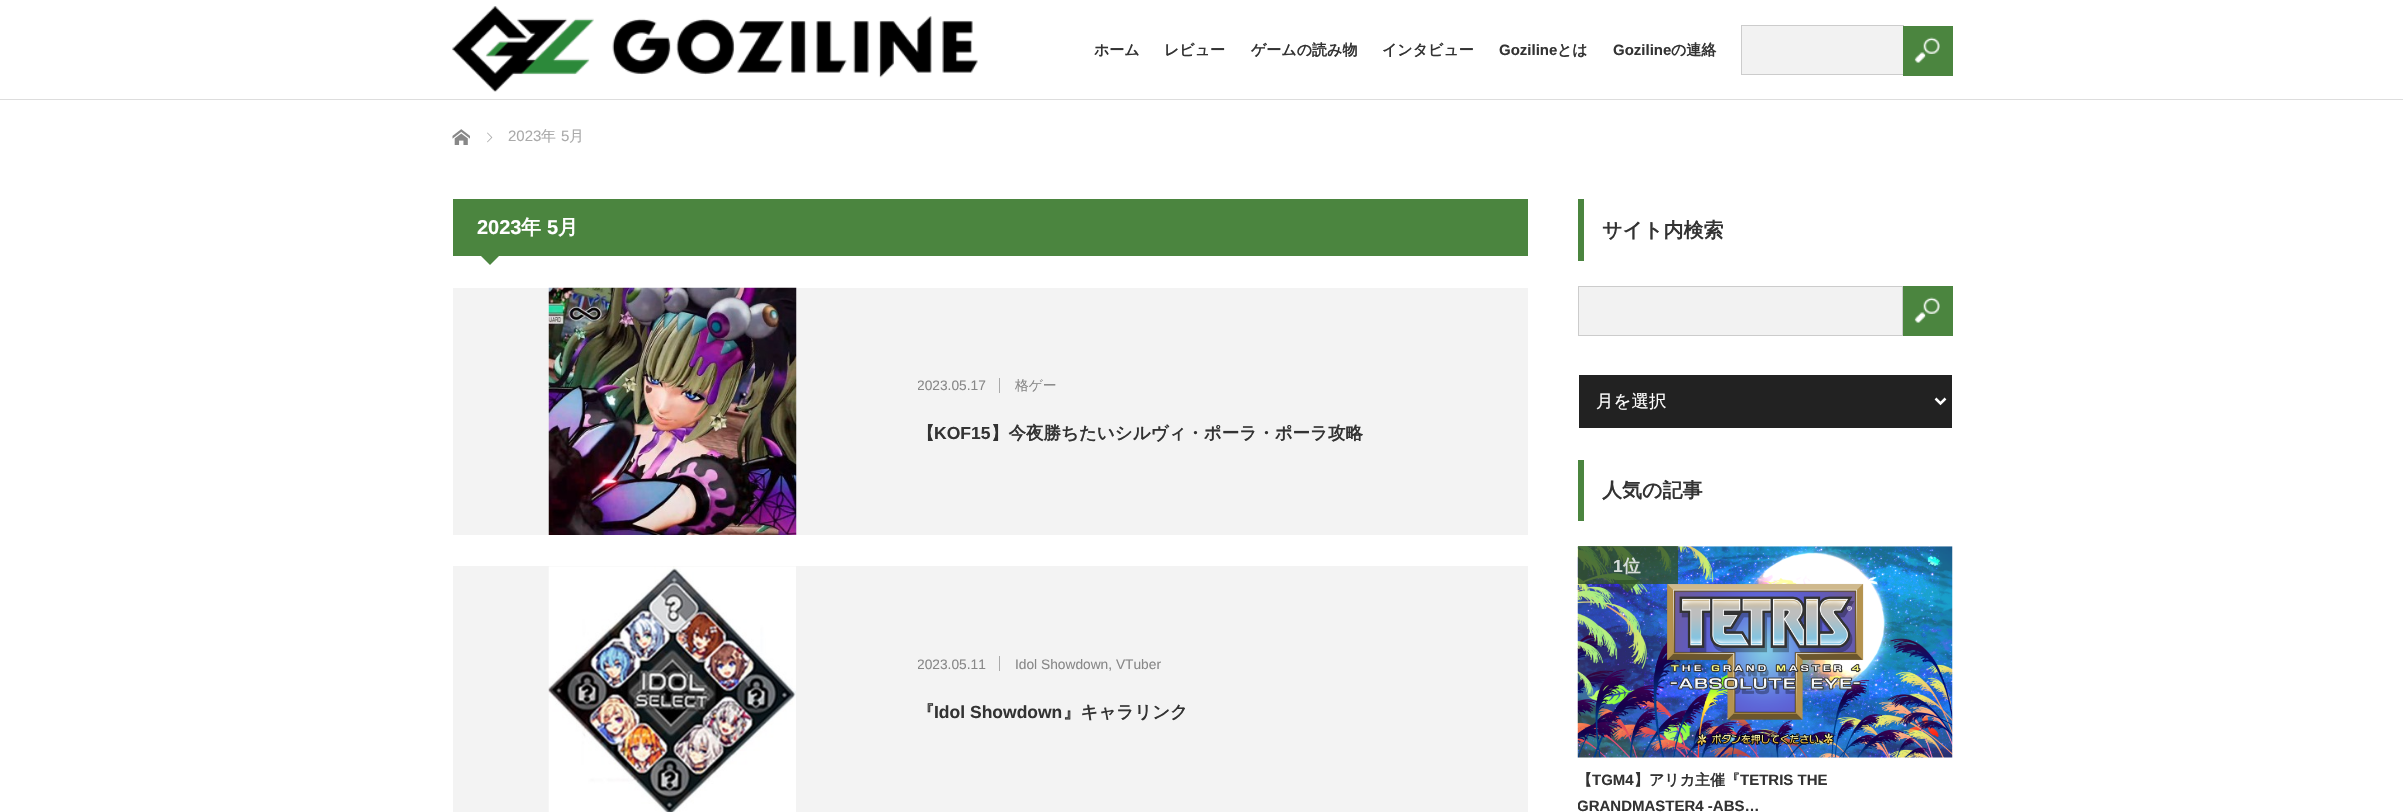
void draw(SkCanvas* canvas) {
    SkPaint paint;
    paint.setAntiAlias(true);
    canvas->clear(0xFFFFFFFF);
    paint.setColor(0xFFDDDDDD);
    canvas->drawRect(SkRect::MakeXYWH(0, 99, 2403, 1), paint);
    canvas->drawImageRect(SkImages::DeferredFromEncodedData(SkData::MakeFromFileName("img1.png")), SkRect::MakeXYWH(452, 6, 526, 86), SkSamplingOptions());
    SkFont font1(fontMgr->matchFamilyStyle("WenQuanYi Zen Hei", SkFontStyle::Bold()), 15);
    font1.setSubpixel(true);
    paint.setColor(0xFF333333);
    canvas->drawString("ホーム", 1094, 55, font1, paint);
    canvas->drawString("レビュー", 1164, 55, font1, paint);
    canvas->drawString("ゲームの読み物", 1251, 55, font1, paint);
    canvas->drawString("インタビュー", 1382, 55, font1, paint);
    SkFont font2(fontMgr->matchFamilyStyle("Liberation Sans", SkFontStyle::Bold()), 15);
    font2.setSubpixel(true);
    canvas->drawString("Goziline", 1499, 55, font2, paint);
    canvas->drawString("とは", 1557, 55, font1, paint);
    canvas->drawString("Goziline", 1613, 55, font2, paint);
    canvas->drawString("の連絡", 1671, 55, font1, paint);
    paint.setColor(0xFFF2F2F2);
    canvas->drawRect(SkRect::MakeXYWH(1741.5f, 25.5f, 162, 49), paint);
    paint.setStyle(SkPaint::kStroke_Style);
    paint.setStrokeWidth(1);
    paint.setColor(0xFFCCCCCC);
    canvas->drawRect(SkRect::MakeXYWH(1741.5f, 25.5f, 162, 49), paint);
    paint.setStyle(SkPaint::kFill_Style);
    paint.setColor(0xFF4B853F);
    canvas->drawRect(SkRect::MakeXYWH(1903, 26, 50, 50), paint);
    canvas->drawImageRect(SkImages::DeferredFromEncodedData(SkData::MakeFromFileName("img2.png")), SkRect::MakeXYWH(1914, 37, 26, 26), SkSamplingOptions());
    canvas->drawImageRect(SkImages::DeferredFromEncodedData(SkData::MakeFromFileName("img3.png")), SkRect::MakeXYWH(452, 129, 18, 16), SkSamplingOptions());
    canvas->drawImageRect(SkImages::DeferredFromEncodedData(SkData::MakeFromFileName("img4.png")), SkRect::MakeXYWH(487, 132, 6, 11), SkSamplingOptions());
    SkFont font3(fontMgr->matchFamilyStyle("Liberation Sans", SkFontStyle::Normal()), 15);
    font3.setSubpixel(true);
    paint.setColor(0xFFAAAAAA);
    canvas->drawString("2023", 508, 141, font3, paint);
    SkFont font4(fontMgr->matchFamilyStyle("WenQuanYi Zen Hei", SkFontStyle(500, SkFontStyle::kNormal_Width, SkFontStyle::kUpright_Slant)), 15);
    font4.setSubpixel(true);
    canvas->drawString("年", 541, 141, font4, paint);
    canvas->drawString("5", 561, 141, font3, paint);
    canvas->drawString("月", 569, 141, font4, paint);
    paint.setColor(0xFF4B853F);
    canvas->drawRect(SkRect::MakeXYWH(453, 199, 1075, 57), paint);
    SkFont font5(fontMgr->matchFamilyStyle("Liberation Sans", SkFontStyle::Bold()), 20);
    font5.setSubpixel(true);
    paint.setColor(0xFFFFFFFF);
    canvas->drawString("2023", 477, 234, font5, paint);
    SkFont font6(fontMgr->matchFamilyStyle("WenQuanYi Zen Hei", SkFontStyle::Bold()), 20);
    font6.setSubpixel(true);
    canvas->drawString("年", 521, 234, font6, paint);
    canvas->drawString("5", 547, 234, font5, paint);
    canvas->drawString("月", 558, 234, font6, paint);
    paint.setColor(0xFF4B853F);
    canvas->drawPath(SkPathBuilder().moveTo(477.5f, 252.5f).lineTo(502.5f, 252.5f).lineTo(490, 265).close().detach(), paint);
    paint.setColor(0xFFF3F3F3);
    canvas->drawRect(SkRect::MakeXYWH(453, 288, 1075, 247), paint);
    canvas->drawImageRect(SkImages::DeferredFromEncodedData(SkData::MakeFromFileName("img5.png")), SkRect::MakeXYWH(548, 287, 249, 248), SkSamplingOptions());
    canvas->save();
    canvas->clipRect(SkRect::MakeXYWH(918, 374, 572, 25));
    SkFont font7(fontMgr->matchFamilyStyle("Liberation Sans", SkFontStyle::Normal()), 13.75f);
    font7.setSubpixel(true);
    paint.setColor(0xFF888888);
    canvas->drawString("2023.05.17", 917, 390, font7, paint);
    canvas->restore();
    paint.setColor(0xFFAAAAAA);
    canvas->drawRect(SkRect::MakeXYWH(999, 378, 1, 15), paint);
    SkFont font8(fontMgr->matchFamilyStyle("WenQuanYi Zen Hei", SkFontStyle(500, SkFontStyle::kNormal_Width, SkFontStyle::kUpright_Slant)), 13.75f);
    font8.setSubpixel(true);
    paint.setColor(0xFF888888);
    canvas->drawString("格ゲー", 1015, 390, font8, paint);
    SkFont font9(fontMgr->matchFamilyStyle("WenQuanYi Zen Hei", SkFontStyle::Bold()), 17.5f);
    font9.setSubpixel(true);
    paint.setColor(0xFF333333);
    canvas->drawString("【", 917, 439, font9, paint);
    SkFont font10(fontMgr->matchFamilyStyle("Liberation Sans", SkFontStyle::Bold()), 17.5f);
    font10.setSubpixel(true);
    canvas->drawString("KOF15", 934, 439, font10, paint);
    canvas->drawString("】今夜勝ちたいシルヴィ・ポーラ・ポーラ攻略", 991, 439, font9, paint);
    paint.setColor(0xFFF3F3F3);
    canvas->drawRect(SkRect::MakeXYWH(453, 566, 1075, 246), paint);
    canvas->drawImageRect(SkImages::DeferredFromEncodedData(SkData::MakeFromFileName("img6.png")), SkRect::MakeXYWH(548, 566, 248, 246), SkSamplingOptions());
    canvas->save();
    canvas->clipRect(SkRect::MakeXYWH(918, 653, 572, 25));
    paint.setColor(0xFF888888);
    canvas->drawString("2023.05.11", 917, 669, font7, paint);
    canvas->restore();
    paint.setColor(0xFFAAAAAA);
    canvas->drawRect(SkRect::MakeXYWH(999, 656, 1, 15), paint);
    paint.setColor(0xFF888888);
    canvas->drawString("Idol Showdown, VTuber", 1015, 669, font7, paint);
    paint.setColor(0xFF333333);
    canvas->drawString("『", 917, 718, font9, paint);
    canvas->drawString("Idol Showdown", 934, 718, font10, paint);
    canvas->drawString("』キャラリンク", 1063, 718, font9, paint);
    paint.setColor(0xFF4B853F);
    canvas->drawRect(SkRect::MakeXYWH(1578, 199, 6, 62), paint);
    paint.setColor(0xFF333333);
    canvas->drawString("サイト内検索", 1602, 237, font6, paint);
    paint.setColor(0xFFF2F2F2);
    canvas->drawRect(SkRect::MakeXYWH(1578.5f, 286.5f, 324, 49), paint);
    paint.setStyle(SkPaint::kStroke_Style);
    paint.setColor(0xFFCCCCCC);
    canvas->drawRect(SkRect::MakeXYWH(1578.5f, 286.5f, 324, 49), paint);
    paint.setStyle(SkPaint::kFill_Style);
    paint.setColor(0xFF4B853F);
    canvas->drawRect(SkRect::MakeXYWH(1903, 286, 50, 50), paint);
    canvas->drawImageRect(SkImages::DeferredFromEncodedData(SkData::MakeFromFileName("img2.png")), SkRect::MakeXYWH(1914, 297, 26, 26), SkSamplingOptions());
    paint.setColor(0xFF222222);
    canvas->drawRect(SkRect::MakeXYWH(1579, 375, 373, 53), paint);
    paint.setStyle(SkPaint::kStroke_Style);
    paint.setStrokeWidth(2.5f);
    paint.setColor(0xFFFFFFFF);
    canvas->drawPath(SkPathBuilder().moveTo(1935.5f, 398.5f).lineTo(1940.5f, 403.5f).lineTo(1945.5f, 398.5f).detach(), paint);
    SkFont font11(fontMgr->matchFamilyStyle("WenQuanYi Zen Hei", SkFontStyle(500, SkFontStyle::kNormal_Width, SkFontStyle::kUpright_Slant)), 17.5f);
    font11.setSubpixel(true);
    paint.setStyle(SkPaint::kFill_Style);
    canvas->drawString("月を選択", 1596, 407, font11, paint);
    paint.setColor(0xFF4B853F);
    canvas->drawRect(SkRect::MakeXYWH(1578, 460, 6, 61), paint);
    paint.setColor(0xFF333333);
    canvas->drawString("人気の記事", 1602, 497, font6, paint);
    canvas->drawImageRect(SkImages::DeferredFromEncodedData(SkData::MakeFromFileName("img7.png")), SkRect::MakeXYWH(1577, 546, 376, 212), SkSamplingOptions());
    paint.setColor(0xCC2F5428);
    canvas->drawRect(SkRect::MakeXYWH(1578, 546, 100, 38), paint);
    paint.setColor(0xFFD6DCD9);
    canvas->drawString("1", 1613, 572, font10, paint);
    canvas->drawString("位", 1623, 572, font9, paint);
    paint.setColor(0xCC2F5428);
    canvas->drawPath(SkPathBuilder().moveTo(1615, 580).lineTo(1640, 580).lineTo(1627.5f, 592.5f).close().detach(), paint);
    paint.setColor(0xFF333333);
    canvas->drawString("【", 1577, 785, font1, paint);
    canvas->drawString("TGM4", 1592, 785, font2, paint);
    canvas->drawString("】アリカ主催『", 1634, 785, font1, paint);
    canvas->drawString("TETRIS THE", 1740, 785, font2, paint);
    canvas->save();
    canvas->clipRect(SkRect::MakeXYWH(1578, 768, 375, 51));
    canvas->drawString("GRANDMASTER4 -ABS…", 1577, 811, font2, paint);
    canvas->restore();
}
